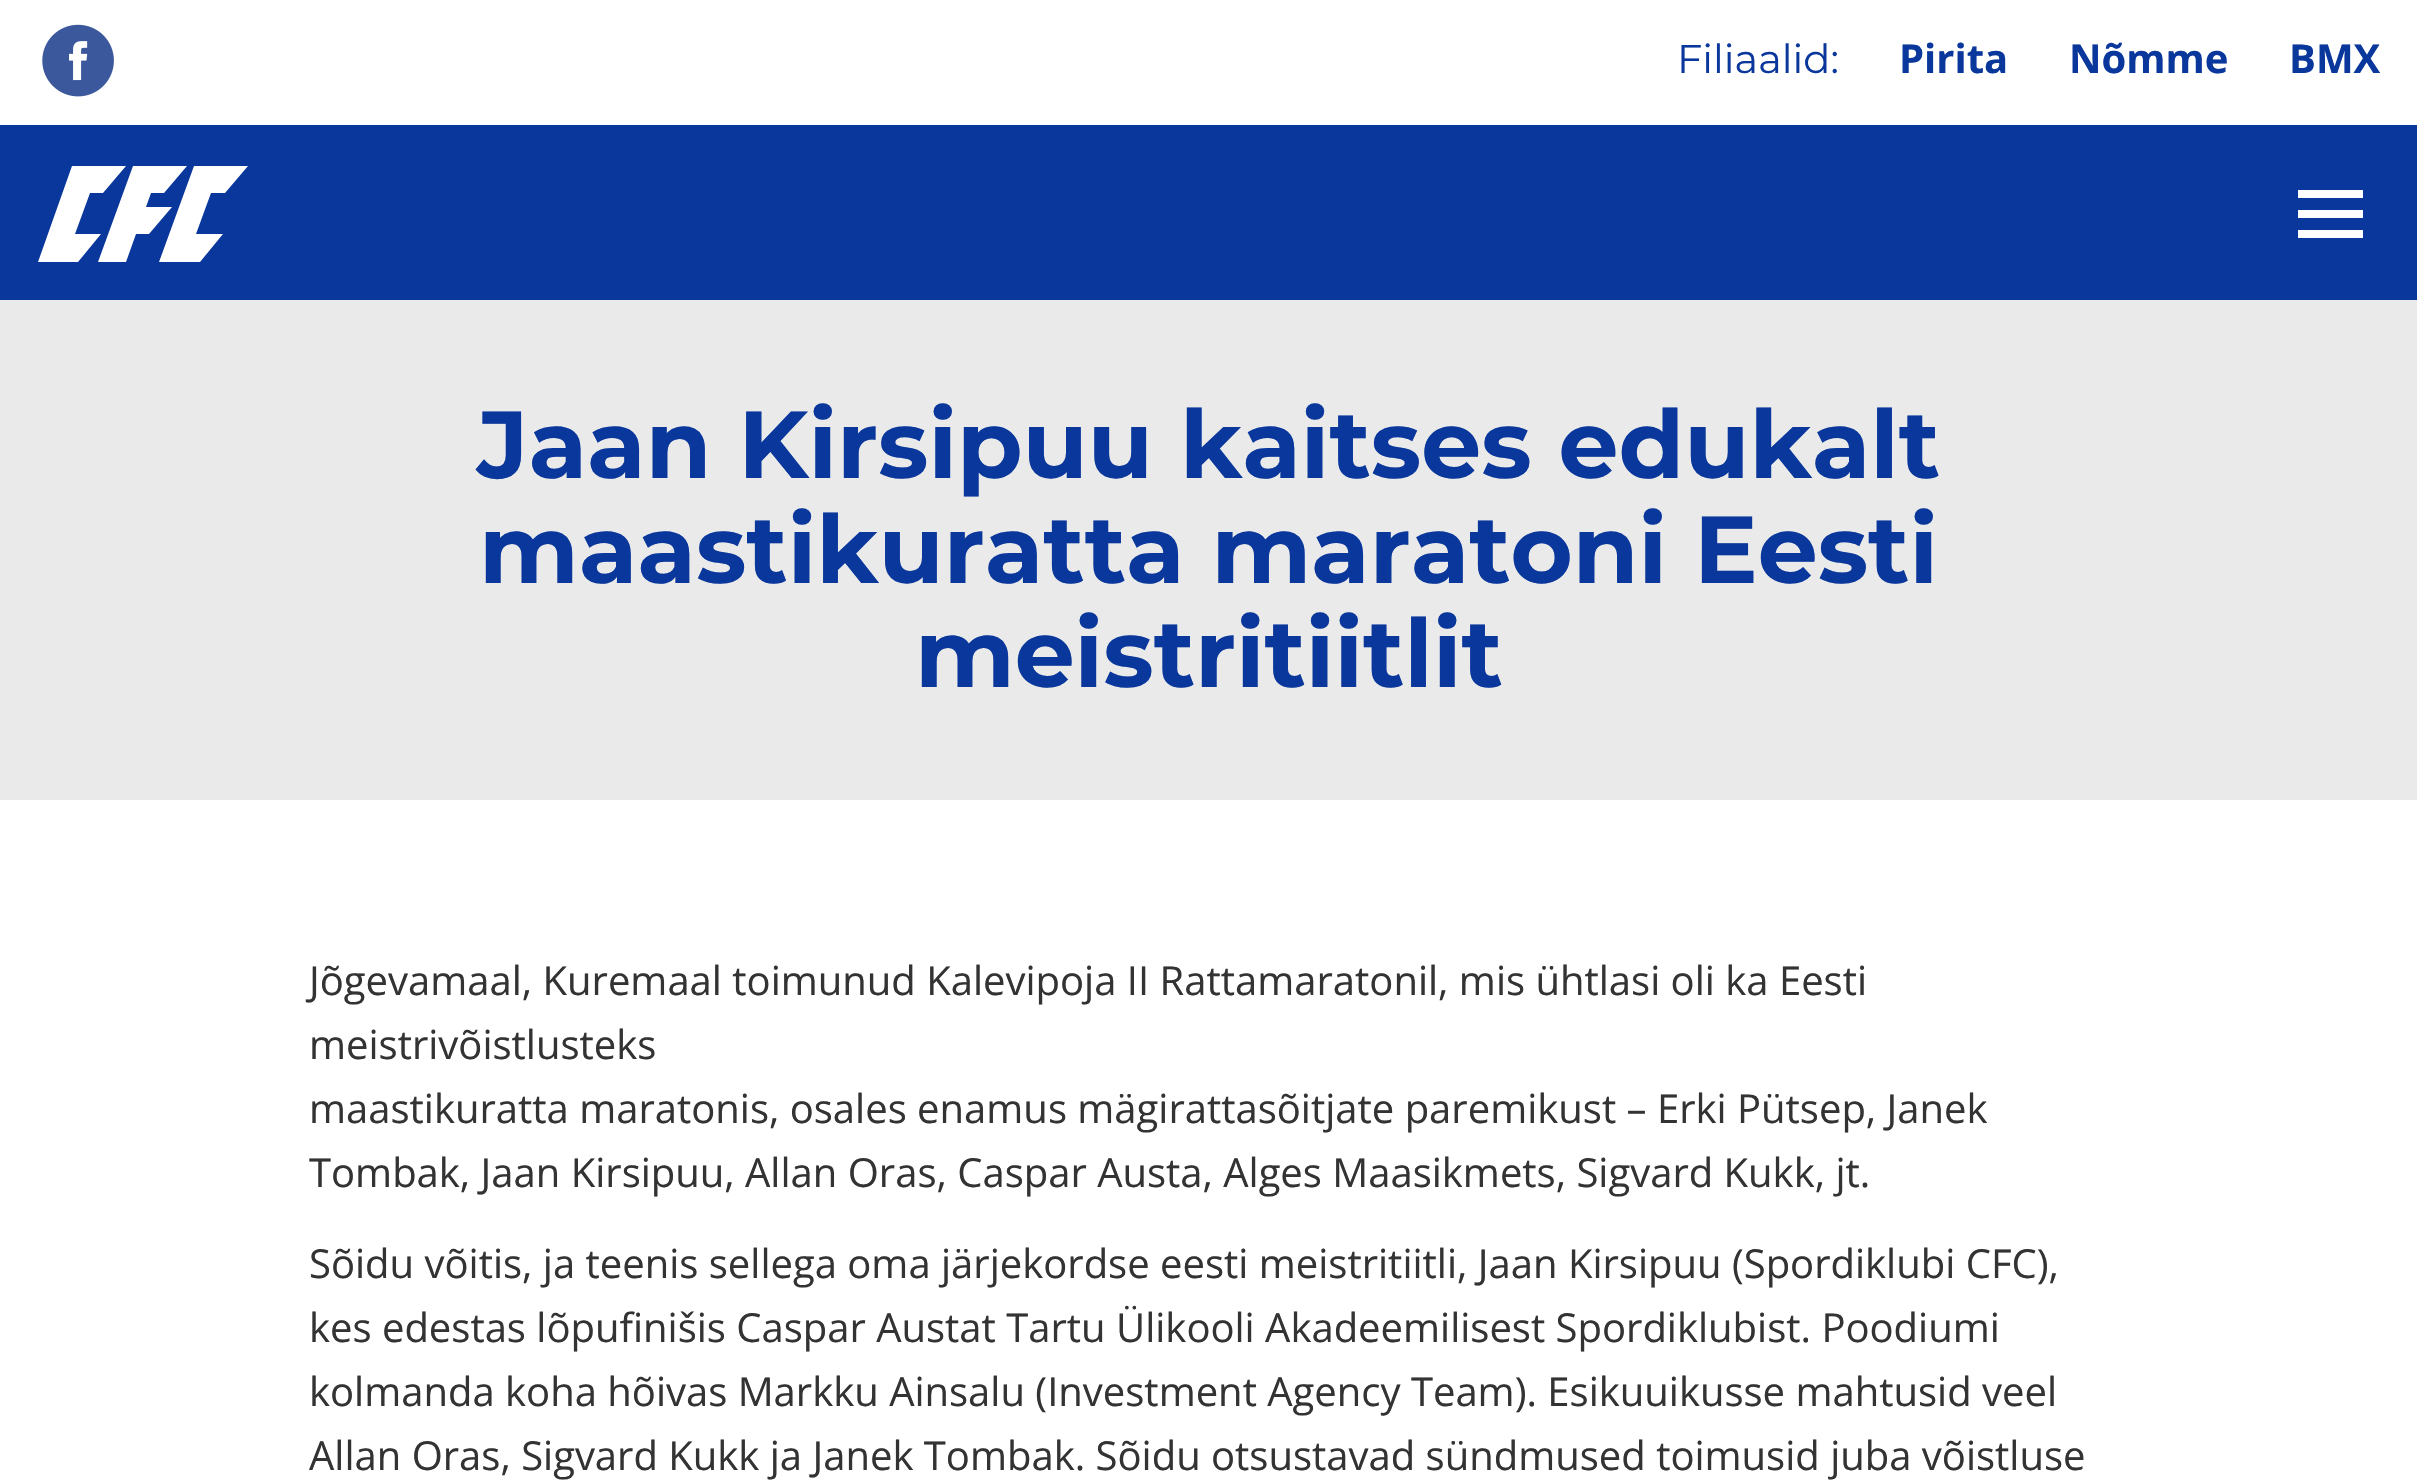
void draw(SkCanvas* canvas) {
    SkPaint paint;
    paint.setAntiAlias(true);
    canvas->clear(0xFFEAEAEA);
    paint.setColor(0xFFFFFFFF);
    canvas->drawRect(SkRect::MakeXYWH(0, 0, 2417, 125), paint);
    canvas->drawImageRect(SkImages::DeferredFromEncodedData(SkData::MakeFromFileName("img1.png")), SkRect::MakeXYWH(42, 24, 72, 73), SkSamplingOptions());
    SkFont font1(fontMgr->matchFamilyStyle("Montserrat", SkFontStyle::Normal()), 40);
    font1.setSubpixel(true);
    paint.setColor(0xFF0A379C);
    canvas->drawString("Filiaalid:", 1677, 73, font1, paint);
    SkFont font2(fontMgr->matchFamilyStyle("Open Sans", SkFontStyle::Bold()), 40);
    font2.setSubpixel(true);
    canvas->drawString("Pirita", 1899, 73, font2, paint);
    canvas->drawString("Nõmme", 2069, 73, font2, paint);
    canvas->drawString("BMX", 2289, 73, font2, paint);
    canvas->drawRect(SkRect::MakeXYWH(0, 125, 2417, 175), paint);
    paint.setColor(0xFFFFFFFF);
    canvas->drawPath(SkPathBuilder().moveTo(75, 234).lineTo(90, 193).lineTo(103, 193).lineTo(126, 166).lineTo(72, 166).lineTo(38, 262).lineTo(78, 262).lineTo(101, 234).close().moveTo(194, 166).lineTo(159, 262).lineTo(200, 262).lineTo(223, 234).lineTo(196, 234).lineTo(211, 193).lineTo(225, 193).lineTo(248, 166).close().moveTo(172, 207).lineTo(146, 207).lineTo(151, 193).lineTo(164, 193).lineTo(187, 166).lineTo(133, 166).lineTo(98, 262).lineTo(126, 262).lineTo(136, 234).lineTo(149, 234).close().detach(), paint);
    canvas->drawRect(SkRect::MakeXYWH(2298, 210, 65, 8), paint);
    canvas->drawRect(SkRect::MakeXYWH(2298, 190, 65, 8), paint);
    canvas->drawRect(SkRect::MakeXYWH(2298, 230, 65, 8), paint);
    SkFont font3(fontMgr->matchFamilyStyle("Montserrat", SkFontStyle::Bold()), 95);
    font3.setSubpixel(true);
    paint.setColor(0xFF0A379C);
    canvas->drawString("Jaan Kirsipuu kaitses edukalt", 477, 478, font3, paint);
    canvas->drawString("maastikuratta maratoni Eesti", 479, 583, font3, paint);
    canvas->drawString("meistritiitlit", 915, 687, font3, paint);
    paint.setColor(0xFFFFFFFF);
    canvas->drawRect(SkRect::MakeXYWH(0, 800, 2417, 684), paint);
    SkFont font4(fontMgr->matchFamilyStyle("Open Sans", SkFontStyle::Normal()), 40);
    font4.setSubpixel(true);
    paint.setColor(0xFF333333);
    canvas->drawString("Jõgevamaal, Kuremaal toimunud Kalevipoja II Rattamaratonil, mis ühtlasi oli ka Eesti", 309, 995, font4, paint);
    canvas->drawString("meistrivõistlusteks", 309, 1059, font4, paint);
    canvas->drawString("maastikuratta maratonis, osales enamus mägirattasõitjate paremikust – Erki Pütsep, Janek", 309, 1123, font4, paint);
    canvas->drawString("Tombak, Jaan Kirsipuu, Allan Oras, Caspar Austa, Alges Maasikmets, Sigvard Kukk, jt.", 309, 1187, font4, paint);
    canvas->drawString("Sõidu võitis, ja teenis sellega oma järjekordse eesti meistritiitli, Jaan Kirsipuu (Spordiklubi CFC),", 309, 1278, font4, paint);
    canvas->drawString("kes edestas lõpufinišis Caspar Austat Tartu Ülikooli Akadeemilisest Spordiklubist. Poodiumi", 309, 1342, font4, paint);
    canvas->drawString("kolmanda koha hõivas Markku Ainsalu (Investment Agency Team). Esikuuikusse mahtusid veel", 309, 1406, font4, paint);
    canvas->drawString("Allan Oras, Sigvard Kukk ja Janek Tombak. Sõidu otsustavad sündmused toimusid juba võistluse", 309, 1470, font4, paint);
}
